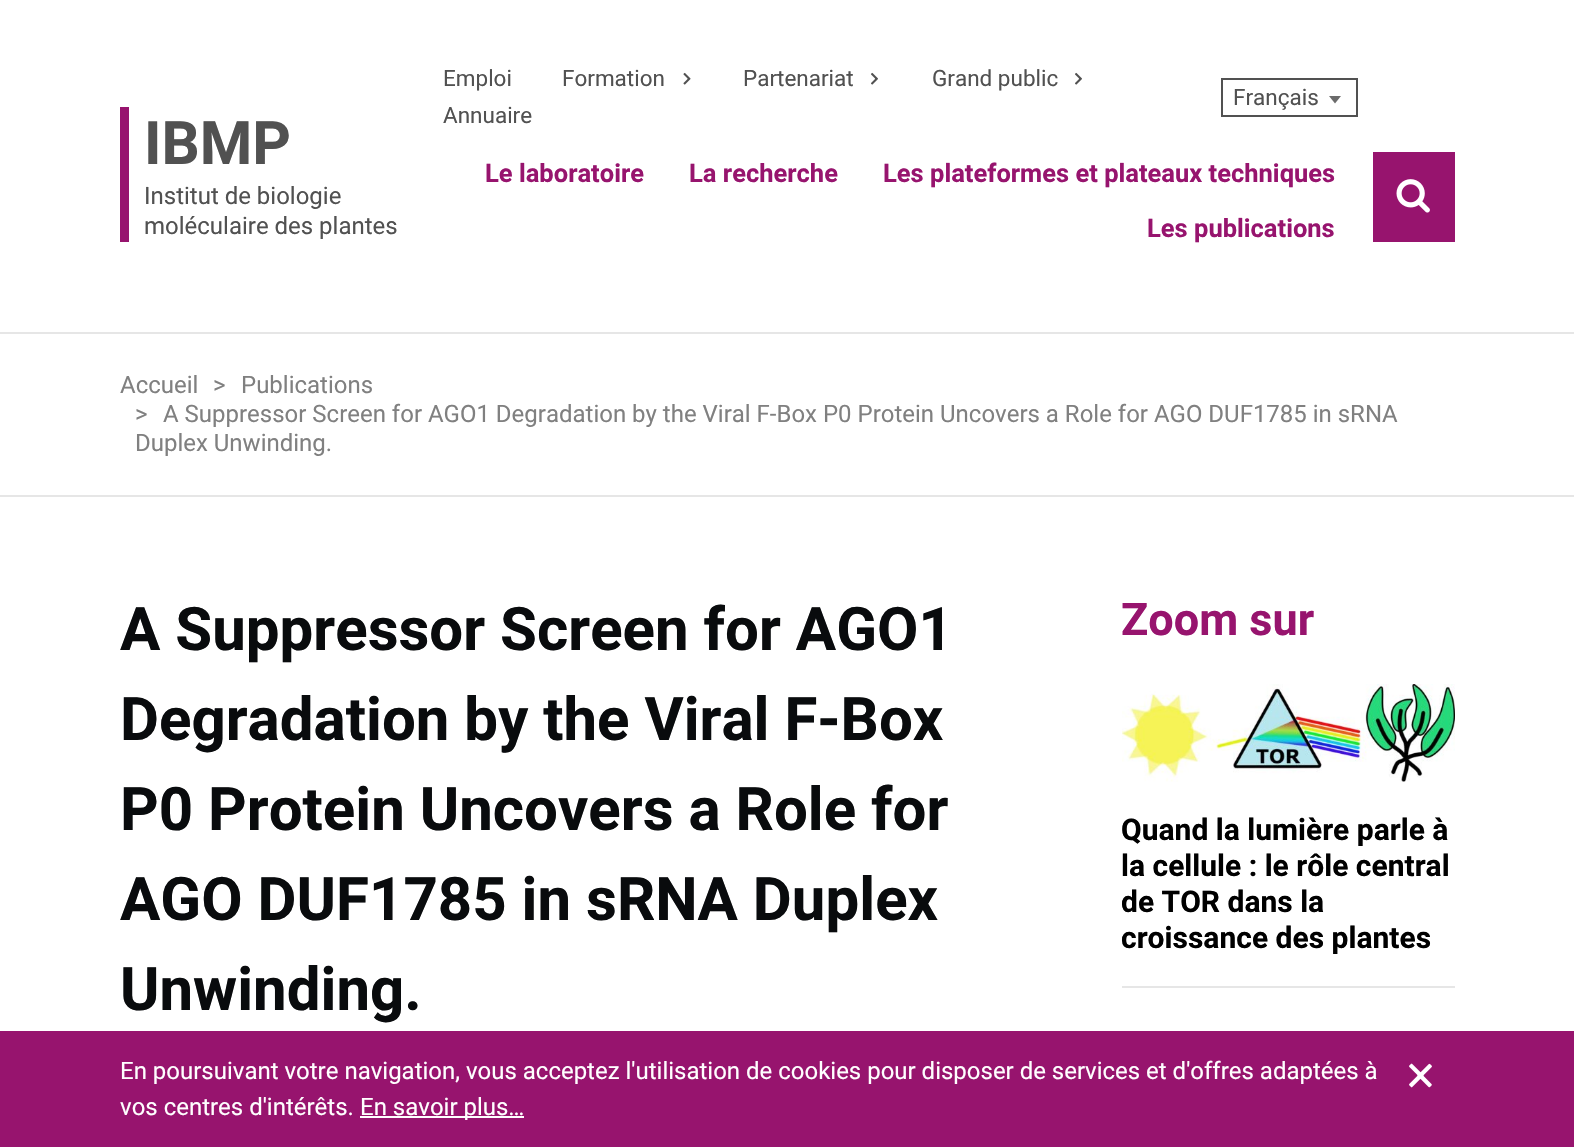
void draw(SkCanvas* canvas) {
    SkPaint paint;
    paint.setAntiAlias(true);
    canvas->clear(0xFFFFFFFF);
    paint.setColor(0xFFE6E6E6);
    canvas->drawRect(SkRect::MakeXYWH(0, 495, 1574, 2), paint);
    paint.setColor(0xFF97146E);
    canvas->drawRect(SkRect::MakeXYWH(120, 107, 9, 135), paint);
    SkFont font1(fontMgr->matchFamilyStyle("Roboto", SkFontStyle::Bold()), 60);
    font1.setSubpixel(true);
    paint.setColor(0xFF515151);
    canvas->drawString("IBMP", 144, 164, font1, paint);
    SkFont font2(fontMgr->matchFamilyStyle("Roboto", SkFontStyle::Normal()), 24);
    font2.setSubpixel(true);
    canvas->drawString("Institut de biologie", 144, 204, font2, paint);
    canvas->drawString("moléculaire des plantes", 144, 234, font2, paint);
    SkFont font3(fontMgr->matchFamilyStyle("Roboto", SkFontStyle::Normal()), 22.5f);
    font3.setSubpixel(true);
    canvas->drawString("Emploi", 443, 86, font3, paint);
    canvas->drawString("Formation", 562, 86, font3, paint);
    canvas->drawImageRect(SkImages::DeferredFromEncodedData(SkData::MakeFromFileName("img1.png")), SkRect::MakeXYWH(683, 72, 8, 13), SkSamplingOptions());
    canvas->drawString("Partenariat", 743, 86, font3, paint);
    canvas->drawImageRect(SkImages::DeferredFromEncodedData(SkData::MakeFromFileName("img2.png")), SkRect::MakeXYWH(871, 72, 7, 13), SkSamplingOptions());
    canvas->drawString("Grand public", 932, 86, font3, paint);
    canvas->drawImageRect(SkImages::DeferredFromEncodedData(SkData::MakeFromFileName("img2.png")), SkRect::MakeXYWH(1075, 72, 7, 13), SkSamplingOptions());
    canvas->drawString("Annuaire", 443, 123, font3, paint);
    paint.setStyle(SkPaint::kStroke_Style);
    paint.setStrokeWidth(2);
    canvas->drawRect(SkRect::MakeXYWH(1222, 79, 135, 37), paint);
    paint.setStyle(SkPaint::kFill_Style);
    canvas->drawString("Français", 1233, 105, font3, paint);
    paint.setColor(0xFF6B6B6B);
    canvas->drawPath(SkPathBuilder().moveTo(1329, 96).lineTo(1341, 96).lineTo(1335, 103.5f).close().detach(), paint);
    SkFont font4(fontMgr->matchFamilyStyle("Roboto", SkFontStyle::Bold()), 25.5f);
    font4.setSubpixel(true);
    paint.setColor(0xFF97146E);
    canvas->drawString("Le laboratoire", 485, 182, font4, paint);
    canvas->drawString("La recherche", 689, 182, font4, paint);
    canvas->drawString("Les plateformes et plateaux techniques", 883, 182, font4, paint);
    canvas->drawString("Les publications", 1147, 237, font4, paint);
    canvas->drawRect(SkRect::MakeXYWH(1373, 152, 82, 90), paint);
    canvas->drawImageRect(SkImages::DeferredFromEncodedData(SkData::MakeFromFileName("img3.png")), SkRect::MakeXYWH(1396, 179, 34, 34), SkSamplingOptions());
    paint.setColor(0xFFE6E6E6);
    canvas->drawRect(SkRect::MakeXYWH(0, 332, 1574, 2), paint);
    paint.setColor(0xFF808080);
    canvas->drawString("Accueil", 120, 393, font2, paint);
    canvas->drawString(">", 213, 393, font2, paint);
    canvas->drawString("Publications", 241, 393, font2, paint);
    canvas->drawString(">", 135, 422, font2, paint);
    canvas->drawString("A Suppressor Screen for AGO1 Degradation by the Viral F-Box P0 Protein Uncovers a Role for AGO DUF1785 in sRNA", 163, 422, font2, paint);
    canvas->drawString("Duplex Unwinding.", 135, 451, font2, paint);
    paint.setColor(0xFF090B0D);
    canvas->drawString("A Suppressor Screen for AGO1", 120, 650, font1, paint);
    canvas->drawString("Degradation by the Viral F-Box", 120, 740, font1, paint);
    canvas->drawString("P0 Protein Uncovers a Role for", 120, 830, font1, paint);
    canvas->drawString("AGO DUF1785 in sRNA Duplex", 120, 920, font1, paint);
    canvas->drawString("Unwinding.", 120, 1010, font1, paint);
    SkFont font5(fontMgr->matchFamilyStyle("Roboto", SkFontStyle::Bold()), 45);
    font5.setSubpixel(true);
    paint.setColor(0xFF97146E);
    canvas->drawString("Zoom sur", 1121, 635, font5, paint);
    paint.setColor(0xFFE6E6E6);
    canvas->drawRect(SkRect::MakeXYWH(1122, 986, 333, 2), paint);
    canvas->drawImageRect(SkImages::DeferredFromEncodedData(SkData::MakeFromFileName("img4.png")), SkRect::MakeXYWH(1122, 684, 333, 98), SkSamplingOptions());
    SkFont font6(fontMgr->matchFamilyStyle("Roboto", SkFontStyle::Bold()), 30);
    font6.setSubpixel(true);
    paint.setColor(0xFF000000);
    canvas->drawString("Quand la lumière parle à", 1121, 840, font6, paint);
    canvas->drawString("la cellule : le rôle central", 1121, 876, font6, paint);
    canvas->drawString("de TOR dans la", 1121, 912, font6, paint);
    canvas->drawString("croissance des plantes", 1121, 948, font6, paint);
    paint.setColor(0xFF97146E);
    canvas->drawRect(SkRect::MakeXYWH(0, 1031, 1574, 116), paint);
    paint.setColor(0xFFFFFFFF);
    canvas->drawString("En poursuivant votre navigation, vous acceptez l'utilisation de cookies pour disposer de services et d'offres adaptées à", 120, 1079, font2, paint);
    canvas->drawImageRect(SkImages::DeferredFromEncodedData(SkData::MakeFromFileName("img5.png")), SkRect::MakeXYWH(1409, 1063, 23, 25), SkSamplingOptions());
    canvas->drawString("vos centres d'intérêts.", 120, 1115, font2, paint);
    canvas->drawRect(SkRect::MakeXYWH(360, 1116, 164, 2), paint);
    canvas->drawString("En savoir plus…", 360, 1115, font2, paint);
}
